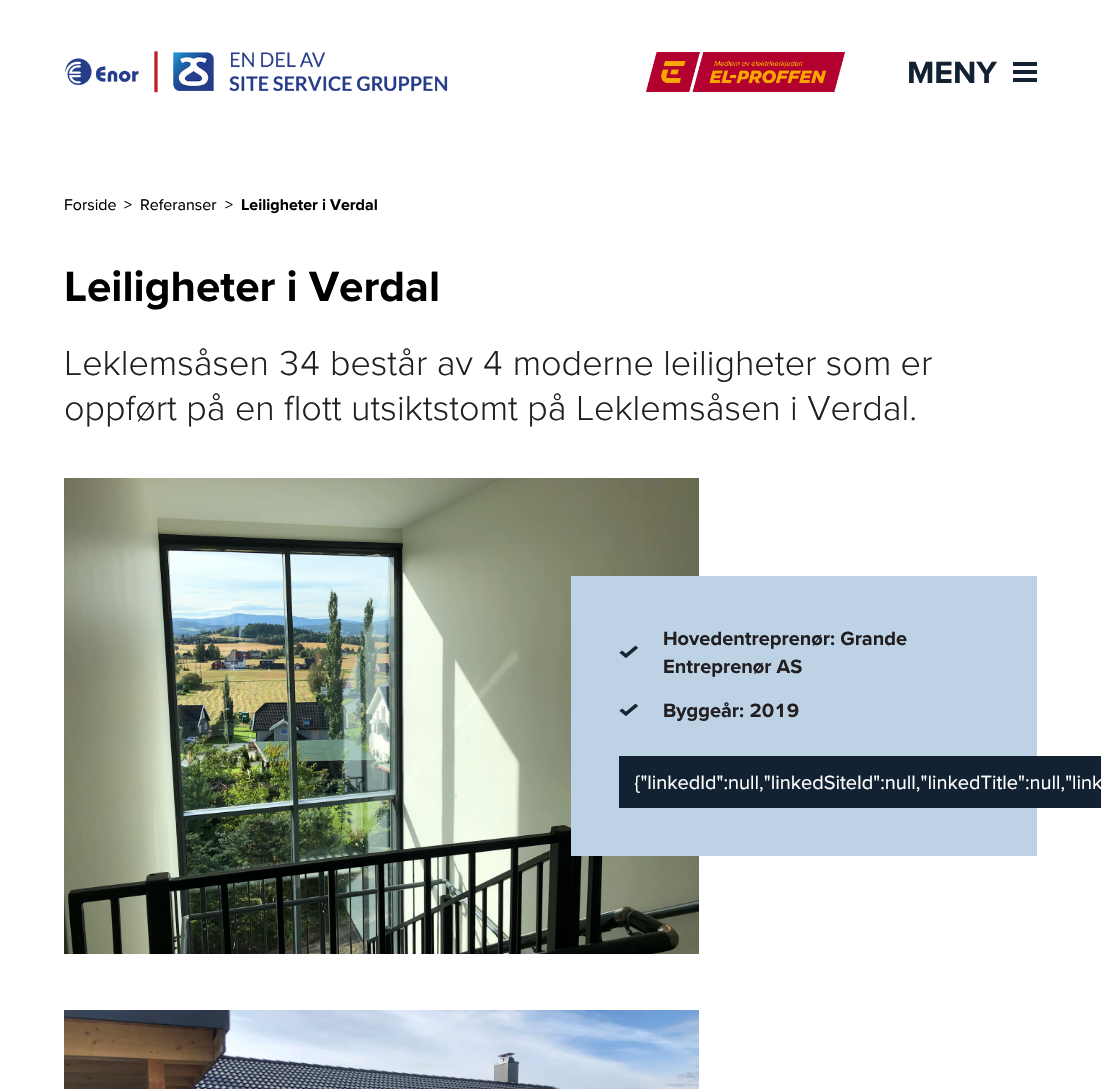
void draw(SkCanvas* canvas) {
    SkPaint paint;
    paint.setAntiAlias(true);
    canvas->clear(0xFFFFFFFF);
    canvas->drawImageRect(SkImages::DeferredFromEncodedData(SkData::MakeFromFileName("img1.png")), SkRect::MakeXYWH(65, 51, 383, 42), SkSamplingOptions());
    canvas->drawImageRect(SkImages::DeferredFromEncodedData(SkData::MakeFromFileName("img2.png")), SkRect::MakeXYWH(646, 52, 199, 40), SkSamplingOptions());
    SkFont font1(fontMgr->matchFamilyStyle("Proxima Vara", SkFontStyle::BoldItalic()), 32);
    font1.setSubpixel(true);
    paint.setColor(0xFF132232);
    canvas->drawString("MENY", 907, 83, font1, paint);
    canvas->drawRect(SkRect::MakeXYWH(1013, 62, 24, 4), paint);
    canvas->drawRect(SkRect::MakeXYWH(1013, 70, 24, 4), paint);
    canvas->drawRect(SkRect::MakeXYWH(1013, 78, 24, 4), paint);
    SkFont font2(fontMgr->matchFamilyStyle("Proxima Vara", SkFontStyle::Normal()), 16);
    font2.setSubpixel(true);
    paint.setColor(0xFF000000);
    canvas->drawString("Forside", 64, 210, font2, paint);
    canvas->drawString(">", 124, 210, font2, paint);
    canvas->drawString("Referanser", 140, 210, font2, paint);
    canvas->drawString(">", 225, 210, font2, paint);
    SkFont font3(fontMgr->matchFamilyStyle("Proxima Vara", SkFontStyle::Bold()), 16);
    font3.setSubpixel(true);
    canvas->drawString("Leiligheter i Verdal", 241, 210, font3, paint);
    SkFont font4(fontMgr->matchFamilyStyle("Proxima Vara", SkFontStyle::Bold()), 44);
    font4.setSubpixel(true);
    canvas->drawString("Leiligheter i Verdal", 64, 301, font4, paint);
    SkFont font5(fontMgr->matchFamilyStyle("Proxima Vara", SkFontStyle(300, SkFontStyle::kNormal_Width, SkFontStyle::kUpright_Slant)), 36);
    font5.setSubpixel(true);
    paint.setColor(0xFF231F20);
    canvas->drawString("Leklemsåsen 34 består av 4 moderne leiligheter som er", 64, 375, font5, paint);
    canvas->drawString("oppført på en flott utsiktstomt på Leklemsåsen i Verdal.", 64, 420, font5, paint);
    canvas->drawImageRect(SkImages::DeferredFromEncodedData(SkData::MakeFromFileName("img3.png")), SkRect::MakeXYWH(64, 478, 635, 476), SkSamplingOptions());
    paint.setColor(0xFFBDD3E5);
    canvas->drawRect(SkRect::MakeXYWH(571, 576, 466, 280), paint);
    canvas->drawImageRect(SkImages::DeferredFromEncodedData(SkData::MakeFromFileName("img4.png")), SkRect::MakeXYWH(619, 645, 20, 14), SkSamplingOptions());
    SkFont font6(fontMgr->matchFamilyStyle("Proxima Vara", SkFontStyle::Bold()), 20);
    font6.setSubpixel(true);
    paint.setColor(0xFF231F20);
    canvas->drawString("Hovedentreprenør: Grande", 663, 645, font6, paint);
    canvas->drawString("Entreprenør AS", 663, 673, font6, paint);
    canvas->drawImageRect(SkImages::DeferredFromEncodedData(SkData::MakeFromFileName("img4.png")), SkRect::MakeXYWH(619, 703, 20, 14), SkSamplingOptions());
    canvas->drawString("Byggeår: 2019", 663, 717, font6, paint);
    paint.setColor(0xFF132232);
    canvas->drawRect(SkRect::MakeXYWH(619, 756, 482, 52), paint);
    SkFont font7(fontMgr->matchFamilyStyle("Proxima Vara", SkFontStyle::Normal()), 20);
    font7.setSubpixel(true);
    paint.setColor(0xFFFFFFFF);
    canvas->drawString("{\"linkedId\":null,\"linkedSiteId\":null,\"linkedTitle\":null,\"link", 635, 789, font7, paint);
    canvas->drawImageRect(SkImages::DeferredFromEncodedData(SkData::MakeFromFileName("img5.png")), SkRect::MakeXYWH(64, 1010, 635, 79), SkSamplingOptions());
}
